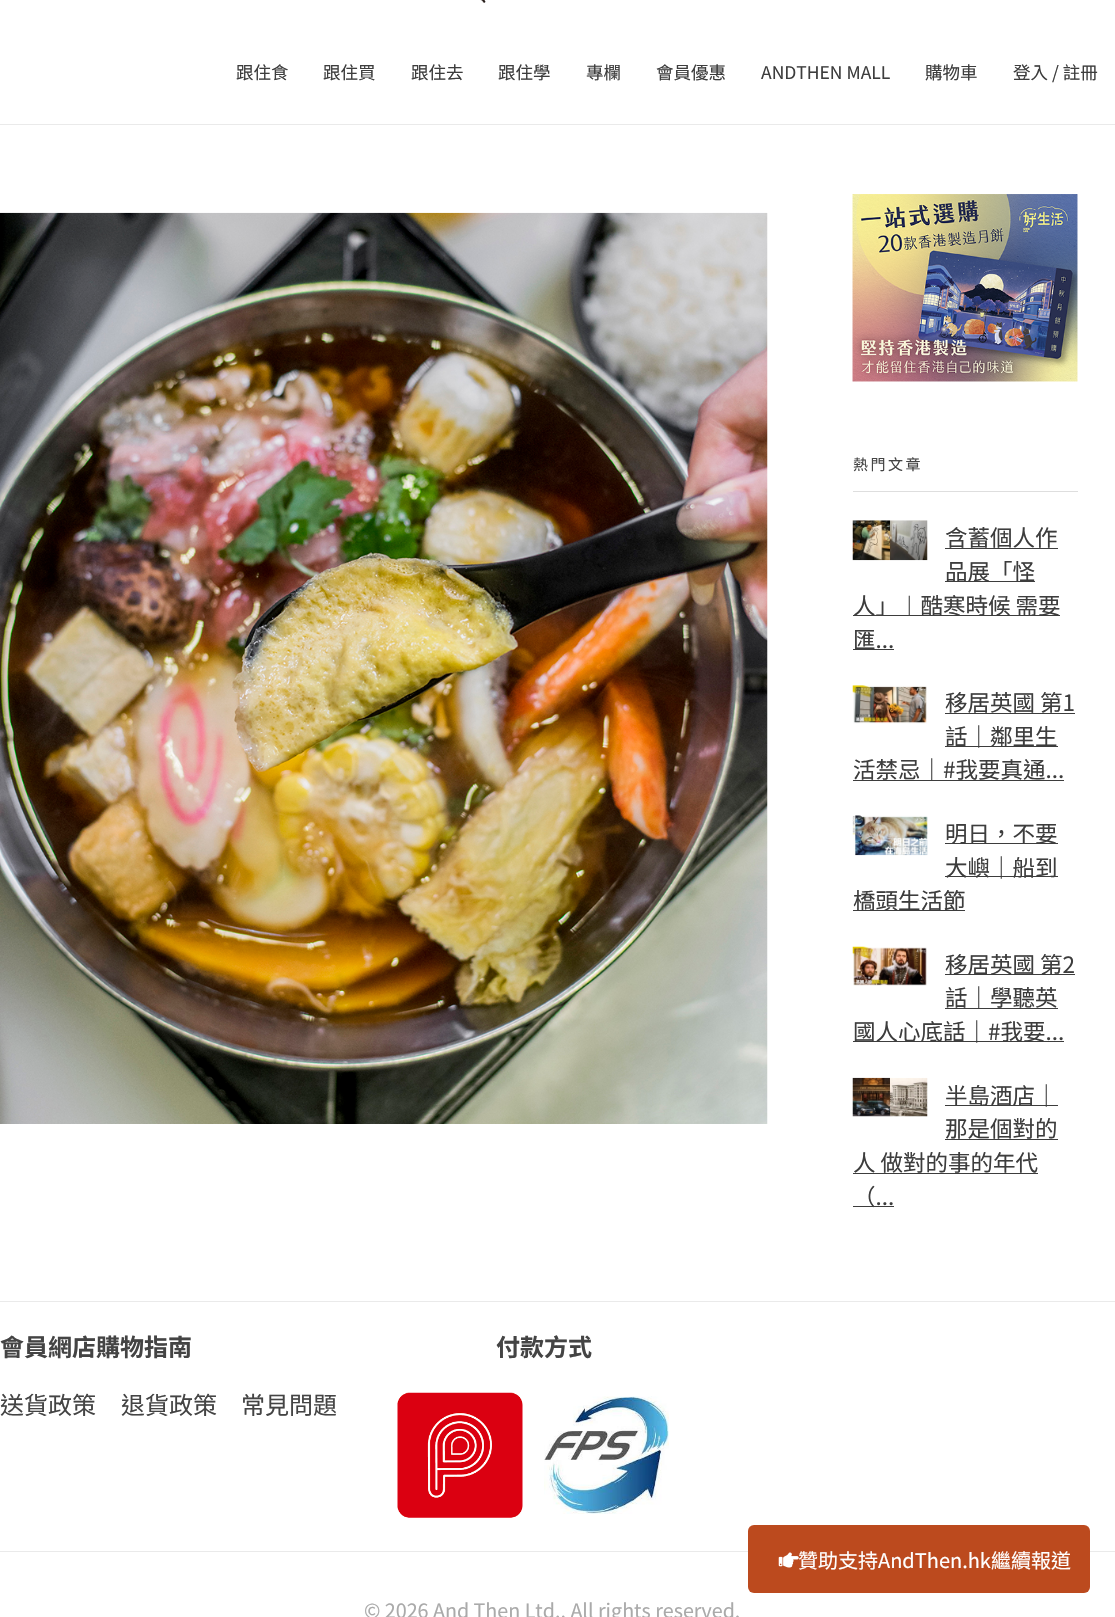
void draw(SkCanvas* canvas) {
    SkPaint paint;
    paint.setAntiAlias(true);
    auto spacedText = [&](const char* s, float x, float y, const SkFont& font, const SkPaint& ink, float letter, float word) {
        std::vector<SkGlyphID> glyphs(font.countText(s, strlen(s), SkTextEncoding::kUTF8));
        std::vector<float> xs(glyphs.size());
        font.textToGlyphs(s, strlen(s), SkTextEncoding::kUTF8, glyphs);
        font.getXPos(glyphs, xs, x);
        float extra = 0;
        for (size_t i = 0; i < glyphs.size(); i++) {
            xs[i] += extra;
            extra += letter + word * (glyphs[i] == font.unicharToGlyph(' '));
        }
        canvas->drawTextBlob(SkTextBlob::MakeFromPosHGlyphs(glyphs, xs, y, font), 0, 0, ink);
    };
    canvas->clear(0xFFFFFFFF);
    paint.setColor(0xFFEAEAEA);
    canvas->drawRect(SkRect::MakeXYWH(0, 124, 1115, 1), paint);
    canvas->drawImageRect(SkImages::DeferredFromEncodedData(SkData::MakeFromFileName("img1.png")), SkRect::MakeXYWH(480, 0, 6, 3), SkSamplingOptions());
    SkFont font1(fontMgr->matchFamilyStyle("Noto Sans HK", SkFontStyle::Normal()), 17.5f);
    font1.setSubpixel(true);
    paint.setColor(0xFF3D3D3D);
    canvas->drawString("跟住食", 236, 79, font1, paint);
    canvas->drawString("跟住買", 323, 79, font1, paint);
    canvas->drawString("跟住去", 411, 79, font1, paint);
    canvas->drawString("跟住學", 498, 79, font1, paint);
    canvas->drawString("專欄", 586, 79, font1, paint);
    canvas->drawString("會員優惠", 656, 79, font1, paint);
    canvas->drawString("ANDTHEN MALL", 761, 79, font1, paint);
    canvas->drawString("購物車", 925, 79, font1, paint);
    canvas->drawString("登入 / 註冊", 1013, 79, font1, paint);
    canvas->drawImageRect(SkImages::DeferredFromEncodedData(SkData::MakeFromFileName("img2.png")), SkRect::MakeXYWH(0, 212, 768, 912), SkSamplingOptions());
    canvas->drawImageRect(SkImages::DeferredFromEncodedData(SkData::MakeFromFileName("img3.png")), SkRect::MakeXYWH(852, 194, 226, 188), SkSamplingOptions());
    paint.setColor(0xFFDEDEDE);
    canvas->drawRect(SkRect::MakeXYWH(853, 491, 225, 1), paint);
    SkFont font2(fontMgr->matchFamilyStyle("Noto Sans HK", SkFontStyle::Normal()), 15);
    font2.setSubpixel(true);
    paint.setColor(0xFF444444);
    spacedText("熱門文章", 853, 470, font2, paint, 2.5f, 0);
    canvas->drawImageRect(SkImages::DeferredFromEncodedData(SkData::MakeFromFileName("img4.png")), SkRect::MakeXYWH(852, 520, 76, 41), SkSamplingOptions());
    SkFont font3(fontMgr->matchFamilyStyle("Noto Sans HK", SkFontStyle::Normal()), 22.5f);
    font3.setSubpixel(true);
    paint.setColor(0xFF3D3D3D);
    canvas->drawString("含蓄個人作", 945, 546, font3, paint);
    canvas->drawRect(SkRect::MakeXYWH(945, 548, 113, 1), paint);
    canvas->drawRect(SkRect::MakeXYWH(945, 581, 90, 1), paint);
    canvas->drawString("品展「怪", 945, 580, font3, paint);
    canvas->drawRect(SkRect::MakeXYWH(853, 615, 207, 1), paint);
    canvas->drawString("人」︱酷寒時候 需要", 853, 614, font3, paint);
    canvas->drawString("匯...", 853, 648, font3, paint);
    canvas->drawRect(SkRect::MakeXYWH(853, 649, 41, 1), paint);
    canvas->drawImageRect(SkImages::DeferredFromEncodedData(SkData::MakeFromFileName("img5.png")), SkRect::MakeXYWH(852, 685, 75, 39), SkSamplingOptions());
    canvas->drawString("移居英國 第1", 945, 711, font3, paint);
    canvas->drawRect(SkRect::MakeXYWH(945, 713, 130, 1), paint);
    canvas->drawRect(SkRect::MakeXYWH(945, 746, 113, 1), paint);
    canvas->drawString("話｜鄰里生", 945, 745, font3, paint);
    canvas->drawRect(SkRect::MakeXYWH(853, 780, 211, 1), paint);
    canvas->drawString("活禁忌｜#我要真通...", 853, 778, font3, paint);
    canvas->drawImageRect(SkImages::DeferredFromEncodedData(SkData::MakeFromFileName("img6.png")), SkRect::MakeXYWH(852, 815, 76, 41), SkSamplingOptions());
    canvas->drawRect(SkRect::MakeXYWH(945, 843, 113, 1), paint);
    canvas->drawString("明日，不要", 945, 842, font3, paint);
    canvas->drawRect(SkRect::MakeXYWH(945, 876, 113, 1), paint);
    canvas->drawString("大嶼｜船到", 945, 876, font3, paint);
    canvas->drawRect(SkRect::MakeXYWH(853, 910, 112, 1), paint);
    canvas->drawString("橋頭生活節", 853, 909, font3, paint);
    canvas->drawImageRect(SkImages::DeferredFromEncodedData(SkData::MakeFromFileName("img7.png")), SkRect::MakeXYWH(852, 946, 75, 40), SkSamplingOptions());
    canvas->drawRect(SkRect::MakeXYWH(945, 974, 130, 1), paint);
    canvas->drawString("移居英國 第2", 945, 973, font3, paint);
    canvas->drawRect(SkRect::MakeXYWH(945, 1008, 113, 1), paint);
    canvas->drawString("話｜學聽英", 945, 1006, font3, paint);
    canvas->drawRect(SkRect::MakeXYWH(853, 1041, 211, 1), paint);
    canvas->drawString("國人心底話｜#我要...", 853, 1040, font3, paint);
    canvas->drawImageRect(SkImages::DeferredFromEncodedData(SkData::MakeFromFileName("img8.png")), SkRect::MakeXYWH(852, 1077, 76, 40), SkSamplingOptions());
    canvas->drawRect(SkRect::MakeXYWH(945, 1105, 113, 1), paint);
    canvas->drawString("半島酒店｜", 945, 1104, font3, paint);
    canvas->drawString("那是個對的", 945, 1137, font3, paint);
    canvas->drawRect(SkRect::MakeXYWH(945, 1139, 113, 1), paint);
    canvas->drawString("人 做對的事的年代", 853, 1171, font3, paint);
    canvas->drawRect(SkRect::MakeXYWH(853, 1173, 185, 1), paint);
    canvas->drawRect(SkRect::MakeXYWH(853, 1206, 41, 1), paint);
    canvas->drawString("（...", 853, 1205, font3, paint);
    paint.setColor(0xFFEAEAEA);
    canvas->drawRect(SkRect::MakeXYWH(0, 1301, 1115, 1), paint);
    SkFont font4(fontMgr->matchFamilyStyle("Noto Sans HK", SkFontStyle::Bold()), 24);
    font4.setSubpixel(true);
    paint.setColor(0xFF444444);
    canvas->drawString("會員網店購物指南", 0, 1356, font4, paint);
    SkFont font5(fontMgr->matchFamilyStyle("Noto Sans HK", SkFontStyle::Normal()), 24);
    font5.setSubpixel(true);
    canvas->drawString("送貨政策", 0, 1414, font5, paint);
    canvas->drawString("退貨政策", 121, 1414, font5, paint);
    canvas->drawString("常見問題", 241, 1414, font5, paint);
    canvas->drawString("付款方式", 496, 1356, font4, paint);
    canvas->drawImageRect(SkImages::DeferredFromEncodedData(SkData::MakeFromFileName("img9.png")), SkRect::MakeXYWH(397, 1392, 126, 126), SkSamplingOptions());
    canvas->drawImageRect(SkImages::DeferredFromEncodedData(SkData::MakeFromFileName("img10.png")), SkRect::MakeXYWH(544, 1396, 125, 118), SkSamplingOptions());
    paint.setColor(0xFFEAEAEA);
    canvas->drawRect(SkRect::MakeXYWH(0, 1551, 1115, 1), paint);
    SkFont font6(fontMgr->matchFamilyStyle("Noto Sans HK", SkFontStyle::Normal()), 19.7f);
    font6.setSubpixel(true);
    paint.setColor(0xFFAAAAAA);
    canvas->drawString("© 2026 And Then Ltd.. All rights reserved.", 364, 1618, font6, paint);
    paint.setColor(0xFFBC4A1E);
    canvas->drawRoundRect(SkRect::MakeXYWH(748, 1525, 342, 68), 6, 6, paint);
    canvas->drawImageRect(SkImages::DeferredFromEncodedData(SkData::MakeFromFileName("img11.png")), SkRect::MakeXYWH(778, 1552, 21, 16), SkSamplingOptions());
    SkFont font7(fontMgr->matchFamilyStyle("Noto Sans HK", SkFontStyle::Normal()), 20);
    font7.setSubpixel(true);
    paint.setColor(0xFFFFFFFF);
    canvas->drawString("贊助支持AndThen.hk繼續報道", 798, 1568, font7, paint);
}
